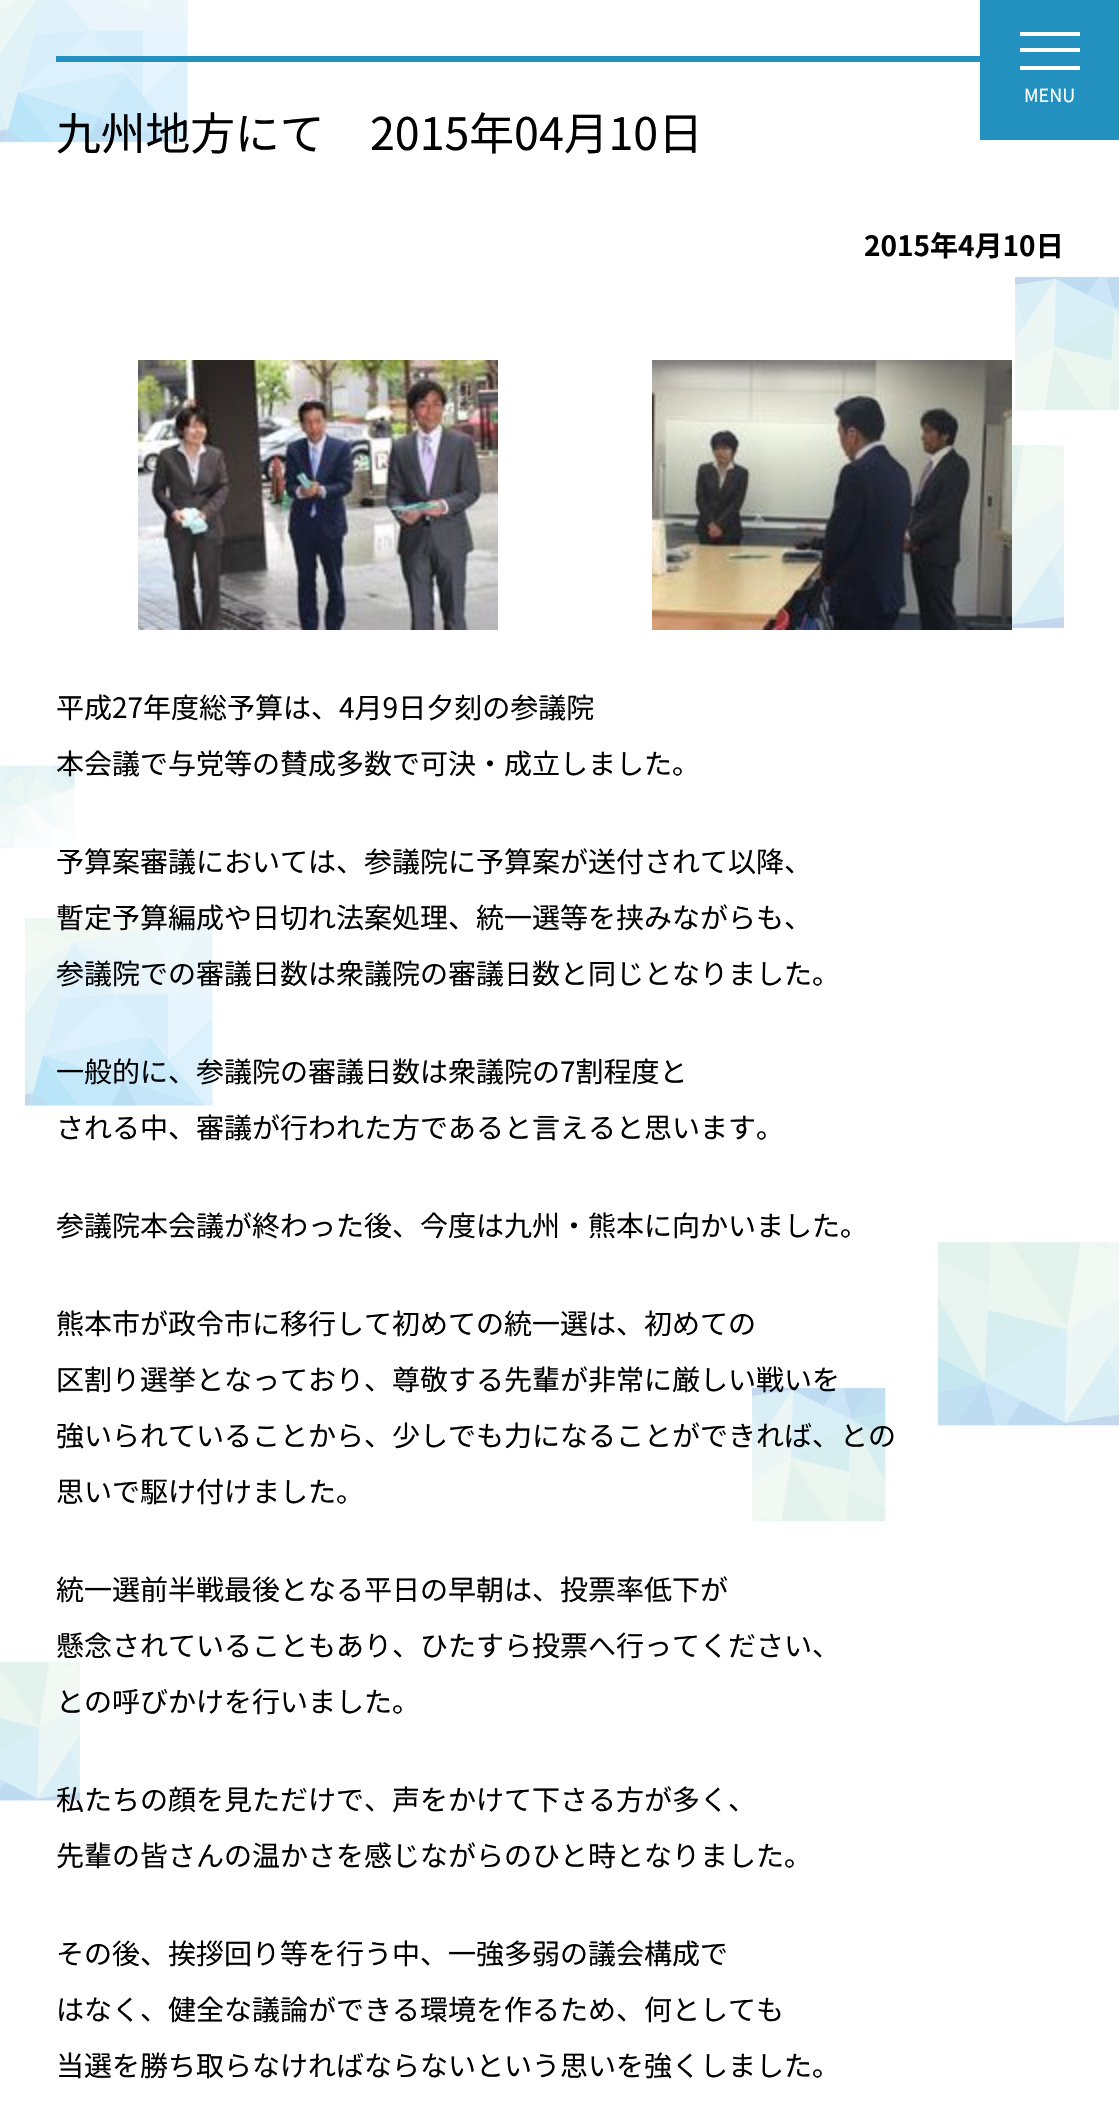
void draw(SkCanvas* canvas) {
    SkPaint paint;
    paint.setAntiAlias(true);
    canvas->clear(0xFFFFFFFF);
    canvas->drawImageRect(SkImages::DeferredFromEncodedData(SkData::MakeFromFileName("img1.png")), SkRect::MakeXYWH(0, 0, 1119, 1801), SkSamplingOptions());
    paint.setColor(0xFF2391BF);
    canvas->drawRect(SkRect::MakeXYWH(980, 0, 139, 140), paint);
    paint.setColor(0xFFFFFFFF);
    canvas->drawRect(SkRect::MakeXYWH(1020, 32, 60, 4), paint);
    canvas->drawRect(SkRect::MakeXYWH(1020, 48, 60, 4), paint);
    canvas->drawRect(SkRect::MakeXYWH(1020, 66, 60, 4), paint);
    SkFont font1(fontMgr->matchFamilyStyle("Noto Sans JP", SkFontStyle::Normal()), 18);
    font1.setSubpixel(true);
    canvas->drawString("MENU", 1024, 102, font1, paint);
    paint.setColor(0xFF2391BF);
    canvas->drawRect(SkRect::MakeXYWH(56, 56, 924, 6), paint);
    SkFont font2(fontMgr->matchFamilyStyle("Noto Sans JP", SkFontStyle::Normal()), 44.75f);
    font2.setSubpixel(true);
    paint.setColor(0xFF000000);
    canvas->drawString("九州地方にて", 56, 150, font2, paint);
    canvas->drawString("2015年04月10日", 370, 150, font2, paint);
    SkFont font3(fontMgr->matchFamilyStyle("Noto Sans JP", SkFontStyle::Bold()), 28);
    font3.setSubpixel(true);
    canvas->drawString("2015年4月10日", 864, 256, font3, paint);
    canvas->drawImageRect(SkImages::DeferredFromEncodedData(SkData::MakeFromFileName("img2.png")), SkRect::MakeXYWH(138, 360, 360, 270), SkSamplingOptions());
    canvas->drawImageRect(SkImages::DeferredFromEncodedData(SkData::MakeFromFileName("img3.png")), SkRect::MakeXYWH(652, 360, 360, 270), SkSamplingOptions());
    SkFont font4(fontMgr->matchFamilyStyle("Noto Sans JP", SkFontStyle::Normal()), 28);
    font4.setSubpixel(true);
    canvas->drawString("平成27年度総予算は、4月9日夕刻の参議院", 56, 718, font4, paint);
    canvas->drawString("本会議で与党等の賛成多数で可決・成立しました。", 56, 774, font4, paint);
    canvas->drawString("予算案審議においては、参議院に予算案が送付されて以降、", 56, 872, font4, paint);
    canvas->drawString("暫定予算編成や日切れ法案処理、統一選等を挟みながらも、", 56, 928, font4, paint);
    canvas->drawString("参議院での審議日数は衆議院の審議日数と同じとなりました。", 56, 984, font4, paint);
    canvas->drawString("一般的に、参議院の審議日数は衆議院の7割程度と", 56, 1082, font4, paint);
    canvas->drawString("される中、審議が行われた方であると言えると思います。", 56, 1138, font4, paint);
    canvas->drawString("参議院本会議が終わった後、今度は九州・熊本に向かいました。", 56, 1236, font4, paint);
    canvas->drawString("熊本市が政令市に移行して初めての統一選は、初めての", 56, 1334, font4, paint);
    canvas->drawString("区割り選挙となっており、尊敬する先輩が非常に厳しい戦いを", 56, 1390, font4, paint);
    canvas->drawString("強いられていることから、少しでも力になることができれば、との", 56, 1446, font4, paint);
    canvas->drawString("思いで駆け付けました。", 56, 1502, font4, paint);
    canvas->drawString("統一選前半戦最後となる平日の早朝は、投票率低下が", 56, 1600, font4, paint);
    canvas->drawString("懸念されていることもあり、ひたすら投票へ行ってください、", 56, 1656, font4, paint);
    canvas->drawString("との呼びかけを行いました。", 56, 1712, font4, paint);
    canvas->drawString("私たちの顔を見ただけで、声をかけて下さる方が多く、", 56, 1810, font4, paint);
    canvas->drawString("先輩の皆さんの温かさを感じながらのひと時となりました。", 56, 1866, font4, paint);
    canvas->drawString("その後、挨拶回り等を行う中、一強多弱の議会構成で", 56, 1964, font4, paint);
    canvas->drawString("はなく、健全な議論ができる環境を作るため、何としても", 56, 2020, font4, paint);
    canvas->drawString("当選を勝ち取らなければならないという思いを強くしました。", 56, 2076, font4, paint);
}
